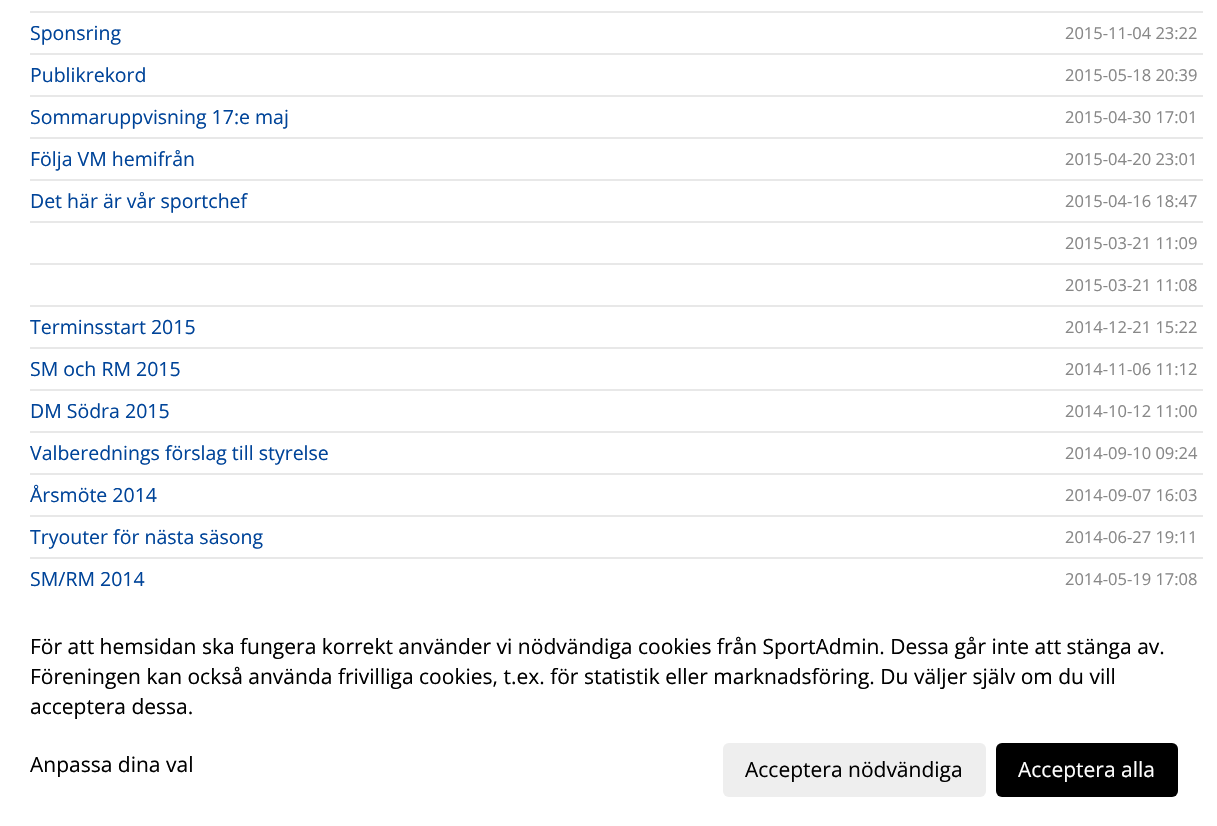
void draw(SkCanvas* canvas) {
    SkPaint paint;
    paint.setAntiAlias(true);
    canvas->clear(0xFFFFFFFF);
    paint.setColor(0xFFE8E8E8);
    canvas->drawRect(SkRect::MakeXYWH(30, 11, 1173, 2), paint);
    SkFont font1(fontMgr->matchFamilyStyle("Open Sans", SkFontStyle::Normal()), 19.5f);
    font1.setSubpixel(true);
    paint.setColor(0xFF004499);
    canvas->drawString("Sponsring", 30, 40, font1, paint);
    SkFont font2(fontMgr->matchFamilyStyle("Open Sans", SkFontStyle::Normal()), 16.5f);
    font2.setSubpixel(true);
    paint.setColor(0xFF888888);
    canvas->drawString("2015-11-04 23:22", 1065, 39, font2, paint);
    paint.setColor(0xFFE8E8E8);
    canvas->drawRect(SkRect::MakeXYWH(30, 53, 1173, 2), paint);
    paint.setColor(0xFF004499);
    canvas->drawString("Publikrekord", 30, 82, font1, paint);
    paint.setColor(0xFF888888);
    canvas->drawString("2015-05-18 20:39", 1065, 81, font2, paint);
    paint.setColor(0xFFE8E8E8);
    canvas->drawRect(SkRect::MakeXYWH(30, 95, 1173, 2), paint);
    paint.setColor(0xFF004499);
    canvas->drawString("Sommaruppvisning 17:e maj", 30, 124, font1, paint);
    paint.setColor(0xFF888888);
    canvas->drawString("2015-04-30 17:01", 1065, 123, font2, paint);
    paint.setColor(0xFFE8E8E8);
    canvas->drawRect(SkRect::MakeXYWH(30, 137, 1173, 2), paint);
    paint.setColor(0xFF004499);
    canvas->drawString("Följa VM hemifrån", 30, 166, font1, paint);
    paint.setColor(0xFF888888);
    canvas->drawString("2015-04-20 23:01", 1065, 165, font2, paint);
    paint.setColor(0xFFE8E8E8);
    canvas->drawRect(SkRect::MakeXYWH(30, 179, 1173, 2), paint);
    paint.setColor(0xFF004499);
    canvas->drawString("Det här är vår sportchef", 30, 208, font1, paint);
    paint.setColor(0xFF888888);
    canvas->drawString("2015-04-16 18:47", 1065, 207, font2, paint);
    paint.setColor(0xFFE8E8E8);
    canvas->drawRect(SkRect::MakeXYWH(30, 221, 1173, 2), paint);
    paint.setColor(0xFF888888);
    canvas->drawString("2015-03-21 11:09", 1065, 249, font2, paint);
    paint.setColor(0xFFE8E8E8);
    canvas->drawRect(SkRect::MakeXYWH(30, 263, 1173, 2), paint);
    paint.setColor(0xFF888888);
    canvas->drawString("2015-03-21 11:08", 1065, 291, font2, paint);
    paint.setColor(0xFFE8E8E8);
    canvas->drawRect(SkRect::MakeXYWH(30, 305, 1173, 2), paint);
    paint.setColor(0xFF004499);
    canvas->drawString("Terminsstart 2015", 30, 334, font1, paint);
    paint.setColor(0xFF888888);
    canvas->drawString("2014-12-21 15:22", 1065, 333, font2, paint);
    paint.setColor(0xFFE8E8E8);
    canvas->drawRect(SkRect::MakeXYWH(30, 347, 1173, 2), paint);
    paint.setColor(0xFF004499);
    canvas->drawString("SM och RM 2015", 30, 376, font1, paint);
    paint.setColor(0xFF888888);
    canvas->drawString("2014-11-06 11:12", 1065, 375, font2, paint);
    paint.setColor(0xFFE8E8E8);
    canvas->drawRect(SkRect::MakeXYWH(30, 389, 1173, 2), paint);
    paint.setColor(0xFF004499);
    canvas->drawString("DM Södra 2015", 30, 418, font1, paint);
    paint.setColor(0xFF888888);
    canvas->drawString("2014-10-12 11:00", 1065, 417, font2, paint);
    paint.setColor(0xFFE8E8E8);
    canvas->drawRect(SkRect::MakeXYWH(30, 431, 1173, 2), paint);
    paint.setColor(0xFF004499);
    canvas->drawString("Valberednings förslag till styrelse", 30, 460, font1, paint);
    paint.setColor(0xFF888888);
    canvas->drawString("2014-09-10 09:24", 1065, 459, font2, paint);
    paint.setColor(0xFFE8E8E8);
    canvas->drawRect(SkRect::MakeXYWH(30, 473, 1173, 2), paint);
    paint.setColor(0xFF004499);
    canvas->drawString("Årsmöte 2014", 30, 502, font1, paint);
    paint.setColor(0xFF888888);
    canvas->drawString("2014-09-07 16:03", 1065, 501, font2, paint);
    paint.setColor(0xFFE8E8E8);
    canvas->drawRect(SkRect::MakeXYWH(30, 515, 1173, 2), paint);
    paint.setColor(0xFF004499);
    canvas->drawString("Tryouter för nästa säsong", 30, 544, font1, paint);
    paint.setColor(0xFF888888);
    canvas->drawString("2014-06-27 19:11", 1065, 543, font2, paint);
    paint.setColor(0xFFE8E8E8);
    canvas->drawRect(SkRect::MakeXYWH(30, 557, 1173, 2), paint);
    paint.setColor(0xFF004499);
    canvas->drawString("SM/RM 2014", 30, 586, font1, paint);
    paint.setColor(0xFF888888);
    canvas->drawString("2014-05-19 17:08", 1065, 585, font2, paint);
    SkFont font3(fontMgr->matchFamilyStyle("Open Sans", SkFontStyle::Normal()), 21);
    font3.setSubpixel(true);
    paint.setColor(0xFF000000);
    canvas->drawString("För att hemsidan ska fungera korrekt använder vi nödvändiga cookies från SportAdmin. Dessa går inte att stänga av.", 30, 654, font3, paint);
    canvas->drawString("Föreningen kan också använda frivilliga cookies, t.ex. för statistik eller marknadsföring. Du väljer själv om du vill", 30, 684, font3, paint);
    canvas->drawString("acceptera dessa.", 30, 714, font3, paint);
    canvas->drawString("Anpassa dina val", 30, 772, font3, paint);
    paint.setColor(0xFFEEEEEE);
    canvas->drawRoundRect(SkRect::MakeXYWH(723, 743, 263, 54), 6, 6, paint);
    paint.setColor(0xFF000000);
    canvas->drawString("Acceptera nödvändiga", 745, 777, font3, paint);
    canvas->drawRoundRect(SkRect::MakeXYWH(996, 743, 182, 54), 6, 6, paint);
    paint.setColor(0xFFFFFFFF);
    canvas->drawString("Acceptera alla", 1018, 777, font3, paint);
}
